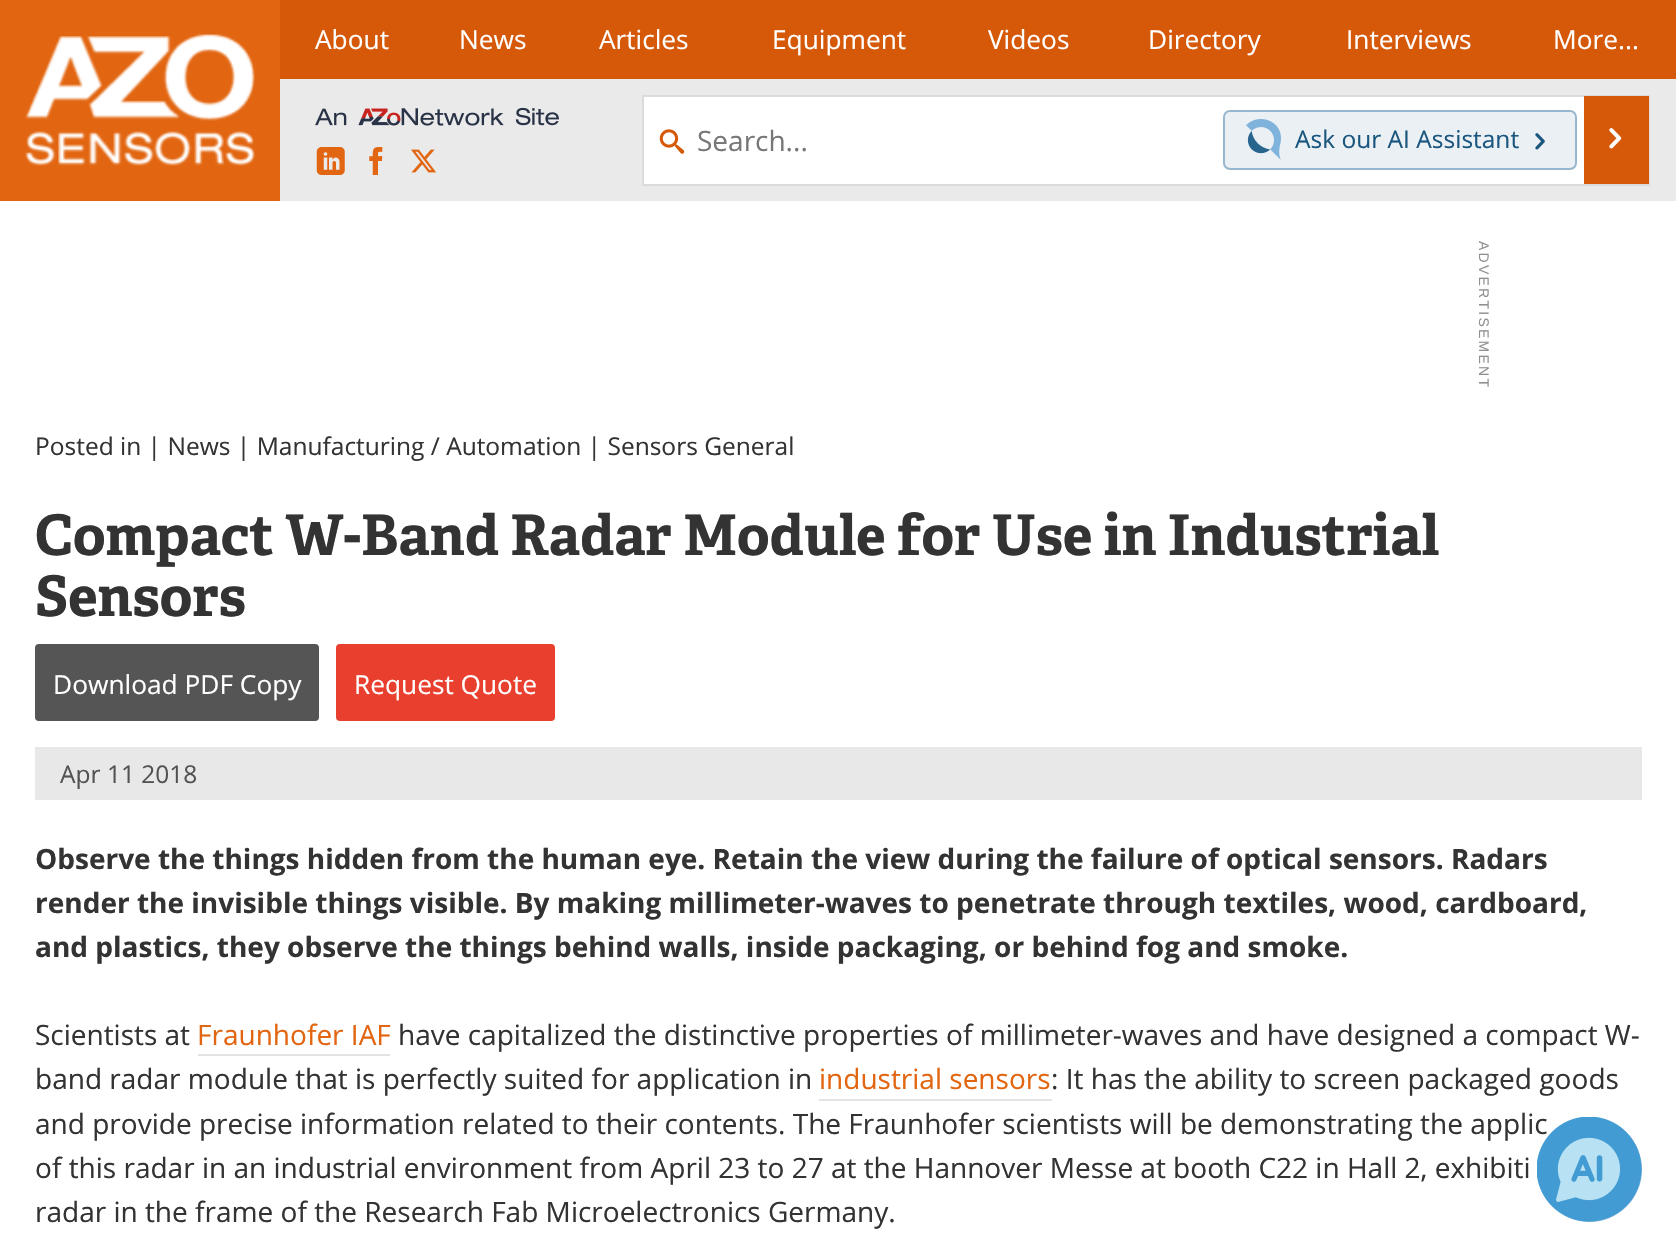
void draw(SkCanvas* canvas) {
    SkPaint paint;
    paint.setAntiAlias(true);
    auto spacedText = [&](const char* s, float x, float y, const SkFont& font, const SkPaint& ink, float letter, float word) {
        std::vector<SkGlyphID> glyphs(font.countText(s, strlen(s), SkTextEncoding::kUTF8));
        std::vector<float> xs(glyphs.size());
        font.textToGlyphs(s, strlen(s), SkTextEncoding::kUTF8, glyphs);
        font.getXPos(glyphs, xs, x);
        float extra = 0;
        for (size_t i = 0; i < glyphs.size(); i++) {
            xs[i] += extra;
            extra += letter + word * (glyphs[i] == font.unicharToGlyph(' '));
        }
        canvas->drawTextBlob(SkTextBlob::MakeFromPosHGlyphs(glyphs, xs, y, font), 0, 0, ink);
    };
    canvas->clear(0xFFFFFFFF);
    paint.setColor(0xFFEAEAEA);
    canvas->drawRect(SkRect::MakeXYWH(280, 79, 1396, 122), paint);
    paint.setColor(0xFFE26611);
    canvas->drawRect(SkRect::MakeXYWH(0, 0, 280, 201), paint);
    canvas->drawImageRect(SkImages::DeferredFromEncodedData(SkData::MakeFromFileName("img1.png")), SkRect::MakeXYWH(25, 34, 230, 132), SkSamplingOptions());
    paint.setColor(0xFFD55908);
    canvas->drawRect(SkRect::MakeXYWH(280, 0, 1396, 79), paint);
    SkFont font1(fontMgr->matchFamilyStyle("Open Sans", SkFontStyle::Normal()), 26.25f);
    font1.setSubpixel(true);
    paint.setColor(0xFFFFFFFF);
    canvas->drawString("About", 315, 49, font1, paint);
    canvas->drawString("News", 459, 49, font1, paint);
    canvas->drawString("Articles", 599, 49, font1, paint);
    canvas->drawString("Equipment", 772, 49, font1, paint);
    canvas->drawString("Videos", 988, 49, font1, paint);
    canvas->drawString("Directory", 1148, 49, font1, paint);
    canvas->drawString("Interviews", 1346, 49, font1, paint);
    canvas->drawString("More...", 1553, 49, font1, paint);
    canvas->drawImageRect(SkImages::DeferredFromEncodedData(SkData::MakeFromFileName("img2.png")), SkRect::MakeXYWH(315, 107, 244, 19), SkSamplingOptions());
    canvas->drawImageRect(SkImages::DeferredFromEncodedData(SkData::MakeFromFileName("img3.png")), SkRect::MakeXYWH(316, 147, 29, 28), SkSamplingOptions());
    canvas->drawImageRect(SkImages::DeferredFromEncodedData(SkData::MakeFromFileName("img4.png")), SkRect::MakeXYWH(369, 147, 14, 28), SkSamplingOptions());
    canvas->drawImageRect(SkImages::DeferredFromEncodedData(SkData::MakeFromFileName("img5.png")), SkRect::MakeXYWH(411, 149, 25, 24), SkSamplingOptions());
    canvas->drawRect(SkRect::MakeXYWH(644, 97, 940, 87), paint);
    paint.setStyle(SkPaint::kStroke_Style);
    paint.setStrokeWidth(2);
    paint.setColor(0xFFDBDBDB);
    canvas->drawRect(SkRect::MakeXYWH(643, 96, 1006, 89), paint);
    canvas->drawImageRect(SkImages::DeferredFromEncodedData(SkData::MakeFromFileName("img6.png")), SkRect::MakeXYWH(659, 129, 26, 25), SkSamplingOptions());
    SkFont font2(fontMgr->matchFamilyStyle("Open Sans", SkFontStyle::Normal()), 28);
    font2.setSubpixel(true);
    paint.setStyle(SkPaint::kFill_Style);
    paint.setColor(0xFF777777);
    canvas->drawString("Search...", 697, 151, font2, paint);
    paint.setColor(0xFFEBF0F5);
    canvas->drawRoundRect(SkRect::MakeXYWH(1224, 111, 352, 58), 6, 6, paint);
    paint.setStyle(SkPaint::kStroke_Style);
    paint.setColor(0xFF97B7CE);
    canvas->drawRoundRect(SkRect::MakeXYWH(1224, 111, 352, 58), 6, 6, paint);
    canvas->drawImageRect(SkImages::DeferredFromEncodedData(SkData::MakeFromFileName("img7.png")), SkRect::MakeXYWH(1246, 119, 35, 41), SkSamplingOptions());
    SkFont font3(fontMgr->matchFamilyStyle("Open Sans", SkFontStyle::Normal()), 24.5f);
    font3.setSubpixel(true);
    paint.setStyle(SkPaint::kFill_Style);
    paint.setColor(0xFF1A567E);
    canvas->drawString("Ask our AI Assistant", 1295, 148, font3, paint);
    canvas->drawImageRect(SkImages::DeferredFromEncodedData(SkData::MakeFromFileName("img8.png")), SkRect::MakeXYWH(1535, 133, 10, 17), SkSamplingOptions());
    paint.setColor(0xFFD55908);
    canvas->drawRect(SkRect::MakeXYWH(1584, 96, 65, 88), paint);
    canvas->drawImageRect(SkImages::DeferredFromEncodedData(SkData::MakeFromFileName("img9.png")), SkRect::MakeXYWH(1609, 128, 13, 21), SkSamplingOptions());
    SkFont font4(fontMgr->matchFamilyStyle("Liberation Sans", SkFontStyle::Normal()), 14);
    font4.setSubpixel(true);
    paint.setColor(0xFF8E8F91);
    canvas->save();
    canvas->rotate(90, 1479, 241);
    spacedText("ADVERTISEMENT", 1479, 241, font4, paint, 2.25f, 0);
    canvas->restore();
    paint.setColor(0xFF333333);
    canvas->drawString("Posted in | News | Manufacturing / Automation | Sensors General", 35, 455, font3, paint);
    SkFont font5(fontMgr->matchFamilyStyle("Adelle", SkFontStyle::Bold()), 56);
    font5.setSubpixel(true);
    canvas->drawString("Compact W-Band Radar Module for Use in Industrial", 35, 555, font5, paint);
    canvas->drawString("Sensors", 35, 616, font5, paint);
    paint.setColor(0xFF555555);
    canvas->drawRoundRect(SkRect::MakeXYWH(35, 644, 284, 77), 4, 4, paint);
    paint.setColor(0xFFFFFFFF);
    canvas->drawString("Download PDF Copy", 53, 694, font1, paint);
    paint.setColor(0xFFE93F2E);
    canvas->drawRoundRect(SkRect::MakeXYWH(336, 644, 219, 77), 4, 4, paint);
    paint.setColor(0xFFFFFFFF);
    canvas->drawString("Request Quote", 354, 694, font1, paint);
    paint.setColor(0xFFE8E8E8);
    canvas->drawRect(SkRect::MakeXYWH(35, 747, 1607, 53), paint);
    paint.setColor(0xFF545154);
    canvas->drawString("Apr 11 2018", 60, 783, font3, paint);
    SkFont font6(fontMgr->matchFamilyStyle("Open Sans", SkFontStyle::Bold()), 28);
    font6.setSubpixel(true);
    paint.setColor(0xFF333333);
    canvas->drawString("Observe the things hidden from the human eye. Retain the view during the failure of optical sensors. Radars", 35, 869, font6, paint);
    canvas->drawString("render the invisible things visible. By making millimeter-waves to penetrate through textiles, wood, cardboard,", 35, 913, font6, paint);
    canvas->drawString("and plastics, they observe the things behind walls, inside packaging, or behind fog and smoke.", 35, 957, font6, paint);
    canvas->drawString("Scientists at", 35, 1045, font2, paint);
    paint.setColor(0xFFE26611);
    canvas->drawString("Fraunhofer IAF", 197, 1045, font2, paint);
    paint.setColor(0xFFE3E3E3);
    canvas->drawRect(SkRect::MakeXYWH(198, 1054, 192, 2), paint);
    paint.setColor(0xFF333333);
    canvas->drawString("have capitalized the distinctive properties of millimeter-waves and have designed a compact W-", 398, 1045, font2, paint);
    canvas->drawString("band radar module that is perfectly suited for application in", 35, 1089, font2, paint);
    paint.setColor(0xFFE26611);
    canvas->drawString("industrial sensors", 819, 1089, font2, paint);
    paint.setColor(0xFFE3E3E3);
    canvas->drawRect(SkRect::MakeXYWH(819, 1099, 233, 2), paint);
    paint.setColor(0xFF333333);
    canvas->drawString(": It has the ability to screen packaged goods", 1051, 1089, font2, paint);
    canvas->drawString("and provide precise information related to their contents. The Fraunhofer scientists will be demonstrating the applic", 35, 1134, font2, paint);
    canvas->drawString("of this radar in an industrial environment from April 23 to 27 at the Hannover Messe at booth C22 in Hall 2, exhibiti", 35, 1178, font2, paint);
    canvas->drawString("radar in the frame of the Research Fab Microelectronics Germany.", 35, 1222, font2, paint);
    paint.setColor(0xFF7FB3DB);
    canvas->drawCircle(1589.5f, 1169.5f, 52.5f, paint);
    canvas->drawImageRect(SkImages::DeferredFromEncodedData(SkData::MakeFromFileName("img10.png")), SkRect::MakeXYWH(1537, 1117, 105, 105), SkSamplingOptions());
}
